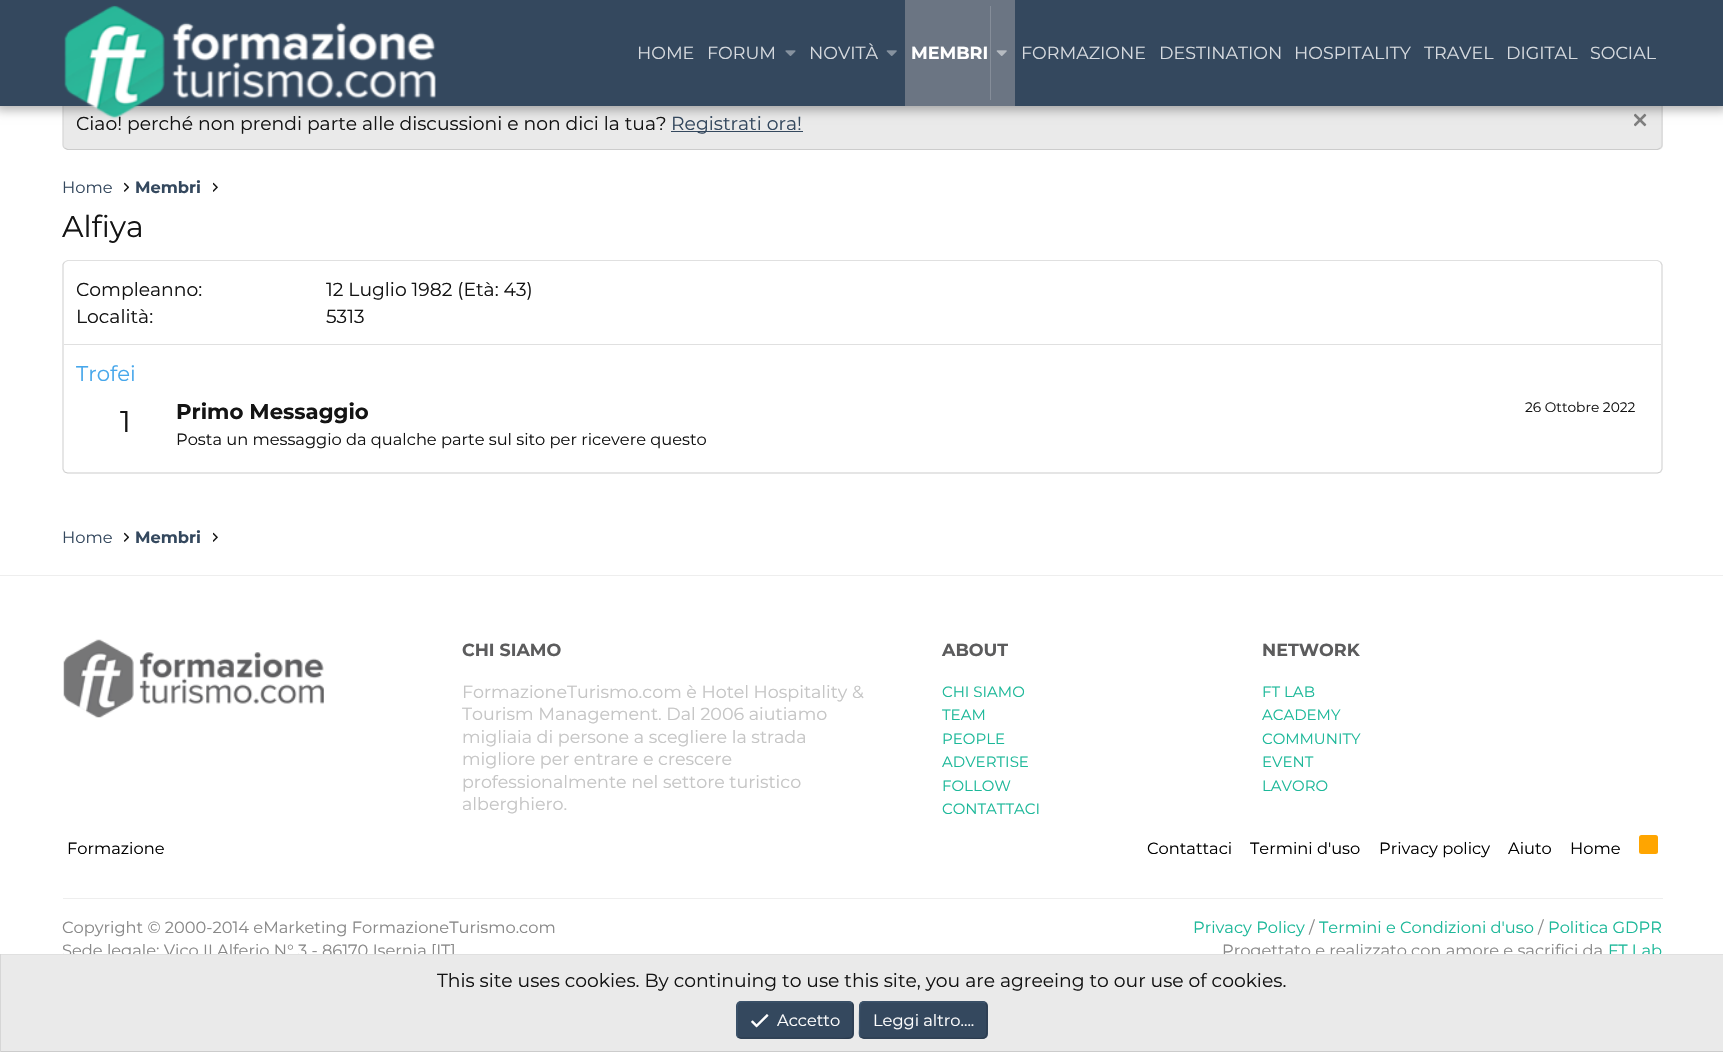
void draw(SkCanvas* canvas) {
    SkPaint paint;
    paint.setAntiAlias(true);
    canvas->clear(0xFFFFFFFF);
    paint.setColor(0xFFEAEAEA);
    canvas->drawRoundRect(SkRect::MakeXYWH(63, 96, 1600, 54), 5, 5, paint);
    paint.setStyle(SkPaint::kStroke_Style);
    paint.setStrokeWidth(1.2f);
    paint.setColor(0xFFD6D6D6);
    canvas->drawPath(SkPathBuilder().moveTo(1660.5f, 98).cubicTo(1661.5f, 99, 1662, 100, 1662, 101).lineTo(1662, 145).cubicTo(1662, 146, 1661.5f, 147.5f, 1660.5f, 148).detach(), paint);
    paint.setColor(0xFFCCCCCC);
    canvas->drawPath(SkPathBuilder().moveTo(1660.5f, 148).lineTo(1657.5f, 149.5f).lineTo(67.5f, 149.5f).lineTo(64.5f, 148).detach(), paint);
    paint.setColor(0xFFD6D6D6);
    canvas->drawPath(SkPathBuilder().moveTo(64.5f, 148).cubicTo(63.5f, 147.5f, 63, 146, 63, 145).lineTo(63, 101).cubicTo(63, 100, 63.5f, 99, 64.5f, 98).detach(), paint);
    canvas->drawImageRect(SkImages::DeferredFromEncodedData(SkData::MakeFromFileName("img5.png")), SkRect::MakeXYWH(1634, 113, 13, 14), SkSamplingOptions());
    paint.setStyle(SkPaint::kFill_Style);
    paint.setColor(0x4D000000);
    paint.setMaskFilter(SkMaskFilter::MakeBlur(kNormal_SkBlurStyle, 5));
    canvas->drawRect(SkRect::MakeXYWH(-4, -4, 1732, 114), paint);
    paint.setMaskFilter(nullptr);
    paint.setColor(0xFF34485E);
    canvas->drawRect(SkRect::MakeXYWH(0, 0, 1723, 106), paint);
    SkFont font1(fontMgr->matchFamilyStyle("Montserrat", SkFontStyle::Normal()), 18.75f);
    font1.setSubpixel(true);
    paint.setColor(0xFF141414);
    canvas->drawString("Ciao! perché non prendi parte alle discussioni e non dici la tua?", 76, 130, font1, paint);
    canvas->drawImageRect(SkImages::DeferredFromEncodedData(SkData::MakeFromFileName("img1.png")), SkRect::MakeXYWH(64, 5, 372, 114), SkSamplingOptions());
    SkFont font2(fontMgr->matchFamilyStyle("Montserrat", SkFontStyle::Normal()), 17.5f);
    font2.setSubpixel(true);
    paint.setColor(0xFFD6DADF);
    canvas->drawString("HOME", 637, 59, font2, paint);
    canvas->drawString("FORUM", 707, 59, font2, paint);
    canvas->drawImageRect(SkImages::DeferredFromEncodedData(SkData::MakeFromFileName("img2.png")), SkRect::MakeXYWH(785, 50, 11, 6), SkSamplingOptions());
    canvas->drawString("NOVITÀ", 809, 59, font2, paint);
    canvas->drawImageRect(SkImages::DeferredFromEncodedData(SkData::MakeFromFileName("img3.png")), SkRect::MakeXYWH(886, 50, 11, 6), SkSamplingOptions());
    paint.setColor(0xFF6B7583);
    canvas->drawRect(SkRect::MakeXYWH(905, 0, 110, 106), paint);
    SkFont font3(fontMgr->matchFamilyStyle("Montserrat", SkFontStyle::Bold()), 17.5f);
    font3.setSubpixel(true);
    paint.setColor(0xFFFFFFFF);
    canvas->drawString("MEMBRI", 911, 59, font3, paint);
    paint.setColor(0xFF858D99);
    canvas->drawRect(SkRect::MakeXYWH(990, 6, 1, 94), paint);
    canvas->drawImageRect(SkImages::DeferredFromEncodedData(SkData::MakeFromFileName("img4.png")), SkRect::MakeXYWH(996, 50, 11, 6), SkSamplingOptions());
    paint.setColor(0xFFD6DADF);
    canvas->drawString("FORMAZIONE", 1021, 59, font2, paint);
    canvas->drawString("DESTINATION", 1159, 59, font2, paint);
    canvas->drawString("HOSPITALITY", 1294, 59, font2, paint);
    canvas->drawString("TRAVEL", 1424, 59, font2, paint);
    canvas->drawString("DIGITAL", 1506, 59, font2, paint);
    canvas->drawString("SOCIAL", 1590, 59, font2, paint);
    paint.setColor(0xFF34485E);
    canvas->drawRect(SkRect::MakeXYWH(671, 131, 132, 1), paint);
    canvas->drawString("Registrati ora!", 671, 130, font1, paint);
    SkFont font4(fontMgr->matchFamilyStyle("Montserrat", SkFontStyle::Normal()), 16.25f);
    font4.setSubpixel(true);
    canvas->drawString("Home", 62, 193, font4, paint);
    canvas->drawImageRect(SkImages::DeferredFromEncodedData(SkData::MakeFromFileName("img6.png")), SkRect::MakeXYWH(124, 182, 5, 10), SkSamplingOptions());
    SkFont font5(fontMgr->matchFamilyStyle("Montserrat", SkFontStyle::Bold()), 16.25f);
    font5.setSubpixel(true);
    canvas->drawString("Membri", 135, 193, font5, paint);
    canvas->drawImageRect(SkImages::DeferredFromEncodedData(SkData::MakeFromFileName("img7.png")), SkRect::MakeXYWH(213, 182, 5, 10), SkSamplingOptions());
    SkFont font6(fontMgr->matchFamilyStyle("Montserrat", SkFontStyle::Normal()), 30);
    font6.setSubpixel(true);
    paint.setColor(0xFF141414);
    canvas->drawString("Alfiya", 62, 237, font6, paint);
    paint.setStyle(SkPaint::kStroke_Style);
    paint.setColor(0xFFE0E0E0);
    canvas->drawPath(SkPathBuilder().moveTo(64.5f, 262).lineTo(67.5f, 260.5f).lineTo(1657.5f, 260.5f).lineTo(1660.5f, 262).detach(), paint);
    paint.setColor(0xFFD6D6D6);
    canvas->drawPath(SkPathBuilder().moveTo(1660.5f, 262).lineTo(1662, 265).lineTo(1662, 469).lineTo(1660.5f, 472).detach(), paint);
    paint.setColor(0xFFCCCCCC);
    canvas->drawPath(SkPathBuilder().moveTo(1660.5f, 472).lineTo(1657.5f, 473).lineTo(67.5f, 473).lineTo(64.5f, 472).detach(), paint);
    paint.setColor(0xFFD6D6D6);
    canvas->drawPath(SkPathBuilder().moveTo(64.5f, 472).lineTo(63, 469).lineTo(63, 264.5f).lineTo(64.5f, 262).detach(), paint);
    paint.setStyle(SkPaint::kFill_Style);
    paint.setColor(0xFF141414);
    canvas->drawString("Compleanno:", 76, 296, font1, paint);
    canvas->drawString("12 Luglio 1982 (Età: 43)", 326, 296, font1, paint);
    canvas->drawString("Località:", 76, 323, font1, paint);
    canvas->drawString("5313", 326, 323, font1, paint);
    paint.setColor(0xFFE0E0E0);
    canvas->drawRect(SkRect::MakeXYWH(64, 344, 1597, 1), paint);
    SkFont font7(fontMgr->matchFamilyStyle("Montserrat", SkFontStyle::Normal()), 21.25f);
    font7.setSubpixel(true);
    paint.setColor(0xFF47A7EB);
    canvas->drawString("Trofei", 76, 381, font7, paint);
    paint.setColor(0xFF141414);
    canvas->drawString("1", 120, 432, font6, paint);
    SkFont font8(fontMgr->matchFamilyStyle("Montserrat", SkFontStyle::Bold()), 21.25f);
    font8.setSubpixel(true);
    canvas->drawString("Primo Messaggio", 176, 419, font8, paint);
    SkFont font9(fontMgr->matchFamilyStyle("Montserrat", SkFontStyle::Normal()), 13.75f);
    font9.setSubpixel(true);
    canvas->drawString("26 Ottobre 2022", 1525, 412, font9, paint);
    canvas->drawString("Posta un messaggio da qualche parte sul sito per ricevere questo", 176, 445, font4, paint);
    paint.setColor(0xFF34485E);
    canvas->drawString("Home", 62, 543, font4, paint);
    canvas->drawImageRect(SkImages::DeferredFromEncodedData(SkData::MakeFromFileName("img6.png")), SkRect::MakeXYWH(124, 532, 5, 10), SkSamplingOptions());
    canvas->drawString("Membri", 135, 543, font5, paint);
    canvas->drawImageRect(SkImages::DeferredFromEncodedData(SkData::MakeFromFileName("img7.png")), SkRect::MakeXYWH(213, 532, 5, 10), SkSamplingOptions());
    paint.setColor(0xFFEEEEEE);
    canvas->drawRect(SkRect::MakeXYWH(0, 575, 1723, 1), paint);
    canvas->drawImageRect(SkImages::DeferredFromEncodedData(SkData::MakeFromFileName("img8.png")), SkRect::MakeXYWH(63, 639, 261, 79), SkSamplingOptions());
    paint.setColor(0xFF5C5C5D);
    canvas->drawString("CHI SIAMO", 462, 656, font3, paint);
    paint.setColor(0xFFC5C5C5);
    canvas->drawString("FormazioneTurismo.com è Hotel Hospitality &", 462, 698, font2, paint);
    canvas->drawString("Tourism Management. Dal 2006 aiutiamo", 462, 720, font2, paint);
    canvas->drawString("migliaia di persone a scegliere la strada", 462, 743, font2, paint);
    canvas->drawString("migliore per entrare e crescere", 462, 765, font2, paint);
    canvas->drawString("professionalmente nel settore turistico", 462, 788, font2, paint);
    canvas->drawString("alberghiero.", 462, 810, font2, paint);
    paint.setColor(0xFF5C5C5D);
    canvas->drawString("ABOUT", 942, 656, font3, paint);
    SkFont font10(fontMgr->matchFamilyStyle("Montserrat", SkFontStyle::Normal()), 15);
    font10.setSubpixel(true);
    paint.setColor(0xFF1CB899);
    canvas->drawString("CHI SIAMO", 942, 697, font10, paint);
    canvas->drawString("TEAM", 942, 720, font10, paint);
    canvas->drawString("PEOPLE", 942, 744, font10, paint);
    canvas->drawString("ADVERTISE", 942, 767, font10, paint);
    canvas->drawString("FOLLOW", 942, 791, font10, paint);
    canvas->drawString("CONTATTACI", 942, 814, font10, paint);
    paint.setColor(0xFF5C5C5D);
    canvas->drawString("NETWORK", 1262, 656, font3, paint);
    paint.setColor(0xFF1CB899);
    canvas->drawString("FT LAB", 1262, 697, font10, paint);
    canvas->drawString("ACADEMY", 1262, 720, font10, paint);
    canvas->drawString("COMMUNITY", 1262, 744, font10, paint);
    canvas->drawString("EVENT", 1262, 767, font10, paint);
    canvas->drawString("LAVORO", 1262, 791, font10, paint);
    paint.setColor(0xFF000000);
    canvas->drawString("Formazione", 67, 854, font4, paint);
    canvas->drawString("Contattaci", 1147, 854, font4, paint);
    canvas->drawString("Termini d'uso", 1250, 854, font4, paint);
    canvas->drawString("Privacy policy", 1379, 854, font4, paint);
    canvas->drawString("Aiuto", 1508, 854, font4, paint);
    canvas->drawString("Home", 1570, 854, font4, paint);
    paint.setColor(0xFFFFA500);
    canvas->drawRoundRect(SkRect::MakeXYWH(1639, 835, 19, 19), 2.5f, 2.5f, paint);
    paint.setColor(0xFFEEEEEE);
    canvas->drawRect(SkRect::MakeXYWH(63, 898, 1600, 1), paint);
    paint.setColor(0xFF888888);
    canvas->drawString("Copyright © 2000-2014 eMarketing FormazioneTurismo.com", 62, 933, font4, paint);
    canvas->drawString("Sede legale: Vico II Alferio N° 3 - 86170 Isernia [IT]", 62, 956, font4, paint);
    paint.setColor(0xFF1CB899);
    canvas->drawString("Privacy Policy", 1193, 933, font4, paint);
    paint.setColor(0xFF888888);
    canvas->drawString("/", 1309, 933, font4, paint);
    paint.setColor(0xFF1CB899);
    canvas->drawString("Termini e Condizioni d'uso", 1319, 933, font4, paint);
    paint.setColor(0xFF888888);
    canvas->drawString("/", 1538, 933, font4, paint);
    paint.setColor(0xFF1CB899);
    canvas->drawString("Politica GDPR", 1548, 933, font4, paint);
    paint.setColor(0xFF888888);
    canvas->drawString("Progettato e realizzato con amore e sacrifici da", 1222, 956, font4, paint);
    paint.setColor(0xFF1CB899);
    canvas->drawString("FT Lab", 1608, 956, font4, paint);
    paint.setColor(0xFFEAEAEA);
    canvas->drawRect(SkRect::MakeXYWH(1, 955, 1722, 96), paint);
    paint.setColor(0xFFE0E0E0);
    canvas->drawRect(SkRect::MakeXYWH(0, 954, 1723, 1), paint);
    paint.setColor(0xFFCCCCCC);
    canvas->drawRect(SkRect::MakeXYWH(0, 1051, 1723, 1), paint);
    paint.setColor(0xFFD6D6D6);
    canvas->drawRect(SkRect::MakeXYWH(0, 954, 1, 98), paint);
    paint.setColor(0xFF141414);
    canvas->drawString("This site uses cookies. By continuing to use this site, you are agreeing to our use of cookies.", 437, 987, font1, paint);
    paint.setColor(0xFF34485E);
    canvas->drawRoundRect(SkRect::MakeXYWH(736, 1001, 118, 38), 5, 5, paint);
    paint.setStyle(SkPaint::kStroke_Style);
    paint.setColor(0xFF2B3B4E);
    canvas->drawPath(SkPathBuilder().moveTo(852, 1003).cubicTo(854, 1005, 853, 1008.5f, 853, 1011).lineTo(853, 1020).cubicTo(853, 1042.5f, 855.5f, 1038, 831, 1038).lineTo(741, 1038).lineTo(738, 1037).detach(), paint);
    paint.setColor(0xFF3D556E);
    canvas->drawPath(SkPathBuilder().moveTo(738, 1037).cubicTo(736, 1035, 737, 1031.5f, 737, 1029).lineTo(737, 1020).cubicTo(737, 997.5f, 734.5f, 1002, 759, 1002).lineTo(849, 1002).lineTo(852, 1003).detach(), paint);
    canvas->drawImageRect(SkImages::DeferredFromEncodedData(SkData::MakeFromFileName("img9.png")), SkRect::MakeXYWH(751, 1014, 18, 14), SkSamplingOptions());
    paint.setStyle(SkPaint::kFill_Style);
    paint.setColor(0xFFFFFFFF);
    canvas->drawString("Accetto", 777, 1026, font4, paint);
    paint.setColor(0xFF34485E);
    canvas->drawRoundRect(SkRect::MakeXYWH(859, 1001, 129, 38), 5, 5, paint);
    paint.setStyle(SkPaint::kStroke_Style);
    paint.setColor(0xFF2B3B4E);
    canvas->drawPath(SkPathBuilder().moveTo(985.5f, 1003).cubicTo(987.5f, 1005, 987, 1008.5f, 987, 1011).lineTo(987, 1020).cubicTo(987, 1043, 989, 1038, 962.5f, 1038).lineTo(864, 1038).lineTo(860.5f, 1037).detach(), paint);
    paint.setColor(0xFF3D556E);
    canvas->drawPath(SkPathBuilder().moveTo(860.5f, 1037).cubicTo(858.5f, 1035, 859.5f, 1031.5f, 859.5f, 1029).lineTo(859.5f, 1020).cubicTo(859.5f, 997, 857.5f, 1002, 883.5f, 1002).lineTo(982.5f, 1002).lineTo(985.5f, 1003).detach(), paint);
    paint.setStyle(SkPaint::kFill_Style);
    paint.setColor(0xFFFFFFFF);
    canvas->drawString("Leggi altro....", 873, 1026, font4, paint);
}
